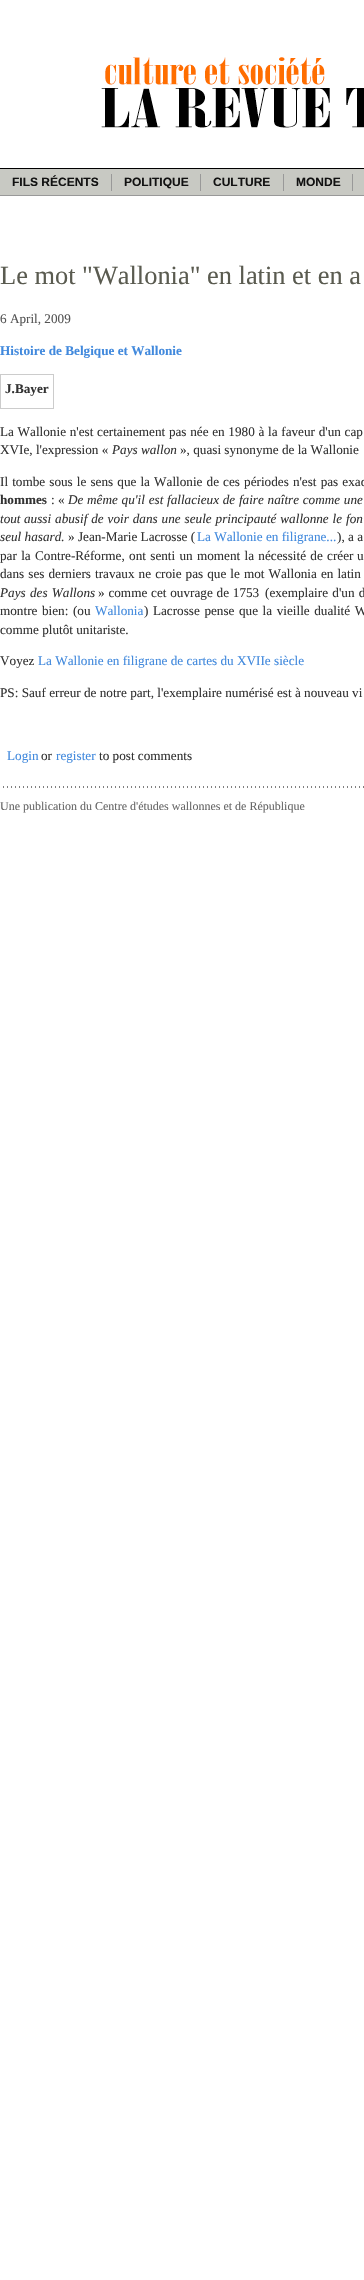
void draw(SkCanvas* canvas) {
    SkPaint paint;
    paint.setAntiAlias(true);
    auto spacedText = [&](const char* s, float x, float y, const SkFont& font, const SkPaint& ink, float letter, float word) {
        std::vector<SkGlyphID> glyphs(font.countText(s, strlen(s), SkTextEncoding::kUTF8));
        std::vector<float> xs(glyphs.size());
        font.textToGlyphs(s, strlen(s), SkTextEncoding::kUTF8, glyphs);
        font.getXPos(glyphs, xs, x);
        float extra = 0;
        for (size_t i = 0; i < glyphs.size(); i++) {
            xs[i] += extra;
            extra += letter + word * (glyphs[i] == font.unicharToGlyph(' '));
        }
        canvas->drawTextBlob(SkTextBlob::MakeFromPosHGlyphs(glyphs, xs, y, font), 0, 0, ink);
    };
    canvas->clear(0xFFFFFFFF);
    canvas->drawImageRect(SkImages::DeferredFromEncodedData(SkData::MakeFromFileName("img1.png")), SkRect::MakeXYWH(101, 57, 263, 71), SkSamplingOptions());
    paint.setColor(0xFF999999);
    canvas->drawRect(SkRect::MakeXYWH(0, 195, 364, 1), paint);
    paint.setColor(0xFFC8C9C3);
    canvas->drawRect(SkRect::MakeXYWH(0, 169, 364, 26), paint);
    paint.setColor(0xFF000000);
    canvas->drawRect(SkRect::MakeXYWH(0, 168, 364, 1), paint);
    paint.setColor(0xFF999999);
    canvas->drawRect(SkRect::MakeXYWH(111, 174, 1, 17), paint);
    SkFont font1(fontMgr->matchFamilyStyle("Liberation Sans", SkFontStyle::Bold()), 12);
    font1.setSubpixel(true);
    paint.setColor(0xFF111111);
    canvas->drawString("FILS RÉCENTS", 12, 186, font1, paint);
    paint.setColor(0xFF999999);
    canvas->drawRect(SkRect::MakeXYWH(200, 174, 1, 17), paint);
    paint.setColor(0xFF111111);
    canvas->drawString("POLITIQUE", 124, 186, font1, paint);
    paint.setColor(0xFF999999);
    canvas->drawRect(SkRect::MakeXYWH(283, 174, 1, 17), paint);
    paint.setColor(0xFF111111);
    canvas->drawString("CULTURE", 213, 186, font1, paint);
    paint.setColor(0xFF999999);
    canvas->drawRect(SkRect::MakeXYWH(352, 174, 1, 17), paint);
    paint.setColor(0xFF111111);
    canvas->drawString("MONDE", 296, 186, font1, paint);
    SkFont font2(fontMgr->matchFamilyStyle("Liberation Serif", SkFontStyle::Normal()), 26.4f);
    font2.setSubpixel(true);
    paint.setColor(0xFF5A5B50);
    canvas->drawString("Le mot \"Wallonia\" en latin et en a", 0, 284, font2, paint);
    SkFont font3(fontMgr->matchFamilyStyle("Liberation Serif", SkFontStyle::Normal()), 13.2f);
    font3.setSubpixel(true);
    paint.setColor(0xFF555555);
    canvas->drawString("6 April, 2009", 0, 323, font3, paint);
    SkFont font4(fontMgr->matchFamilyStyle("Liberation Serif", SkFontStyle::Bold()), 13.2f);
    font4.setSubpixel(true);
    paint.setColor(0xFF4189DD);
    canvas->drawString("Histoire de Belgique et Wallonie", 0, 355, font4, paint);
    paint.setStyle(SkPaint::kStroke_Style);
    paint.setStrokeWidth(1);
    paint.setColor(0xFFCCCCCC);
    canvas->drawRect(SkRect::MakeXYWH(0.5f, 374.5f, 53, 34), paint);
    paint.setStyle(SkPaint::kFill_Style);
    paint.setColor(0xFF333333);
    canvas->drawString("J.Bayer", 5, 393, font4, paint);
    spacedText("La Wallonie n'est certainement pas née en 1980 à la faveur d'un cap", 0, 436, font3, paint, 0, 0.4f);
    canvas->drawString("XVIe, l'expression «", 0, 454, font3, paint);
    SkFont font5(fontMgr->matchFamilyStyle("Liberation Serif", SkFontStyle::Italic()), 13.2f);
    font5.setSubpixel(true);
    canvas->drawString("Pays wallon", 112, 454, font5, paint);
    canvas->drawString("», quasi synonyme de la Wallonie", 180, 454, font3, paint);
    spacedText("Il tombe sous le sens que la Wallonie de ces périodes n'est pas exac", 0, 486, font3, paint, 0, 0.8f);
    canvas->drawString("hommes", 0, 504, font4, paint);
    canvas->drawString(": «", 51, 504, font3, paint);
    spacedText("De même qu'il est fallacieux de faire naître comme une", 68, 504, font5, paint, 0, 0.4f);
    canvas->drawString("tout", 0, 523, font5, paint);
    spacedText("aussi abusif de voir dans une seule principauté wallonne le fon", 24, 523, font5, paint, 0, 0.6f);
    canvas->drawString("seul hasard.", 0, 541, font5, paint);
    canvas->drawString("» Jean-Marie Lacrosse (", 68, 541, font3, paint);
    paint.setColor(0xFF4189DD);
    canvas->drawString("La Wallonie en filigrane...", 197, 541, font3, paint);
    paint.setColor(0xFF333333);
    canvas->drawString("), a a", 337, 541, font3, paint);
    spacedText("par la Contre-Réforme, ont senti un moment la nécessité de créer", 0, 560, font3, paint, 0, 1);
    canvas->drawString("u", 357, 560, font3, paint);
    spacedText("dans ses derniers travaux ne croie pas que le mot Wallonia en latin", 0, 578, font3, paint, 0, 0.75f);
    spacedText("Pays des Wallons", 0, 597, font5, paint, 0, 1);
    spacedText("» comme cet ouvrage de 1753", 98, 597, font3, paint, 0, 0.5f);
    spacedText("(exemplaire d'un d", 265, 597, font3, paint, 0, 1);
    spacedText("montre bien: (ou", 0, 615, font3, paint, 0, 1.25f);
    paint.setColor(0xFF4189DD);
    canvas->drawString("Wallonia", 95, 615, font3, paint);
    paint.setColor(0xFF333333);
    spacedText(") Lacrosse pense que la vieille dualité W", 144, 615, font3, paint, 0, 1.25f);
    canvas->drawString("comme plutôt unitariste.", 0, 634, font3, paint);
    canvas->drawString("Voyez", 0, 665, font3, paint);
    paint.setColor(0xFF4189DD);
    canvas->drawString("La Wallonie en filigrane de cartes du XVIIe siècle", 38, 665, font3, paint);
    paint.setColor(0xFF333333);
    canvas->drawString("PS: Sauf erreur de notre part, l'exemplaire numérisé est à nouveau vi", 0, 697, font3, paint);
    paint.setColor(0xFF4189DD);
    canvas->drawString("Login", 7, 760, font3, paint);
    paint.setColor(0xFF333333);
    canvas->drawString("or", 41, 760, font3, paint);
    paint.setColor(0xFF4189DD);
    canvas->drawString("register", 56, 760, font3, paint);
    paint.setColor(0xFF333333);
    canvas->drawString("to post comments", 99, 760, font3, paint);
    canvas->drawImageRect(SkImages::DeferredFromEncodedData(SkData::MakeFromFileName("img2.png")), SkRect::MakeXYWH(3, 786, 361, 2), SkSamplingOptions());
    SkFont font6(fontMgr->matchFamilyStyle("Liberation Serif", SkFontStyle::Normal()), 12);
    font6.setSubpixel(true);
    paint.setColor(0xFF666666);
    canvas->drawString("Une publication du Centre d'études wallonnes et de République", 0, 810, font6, paint);
}
